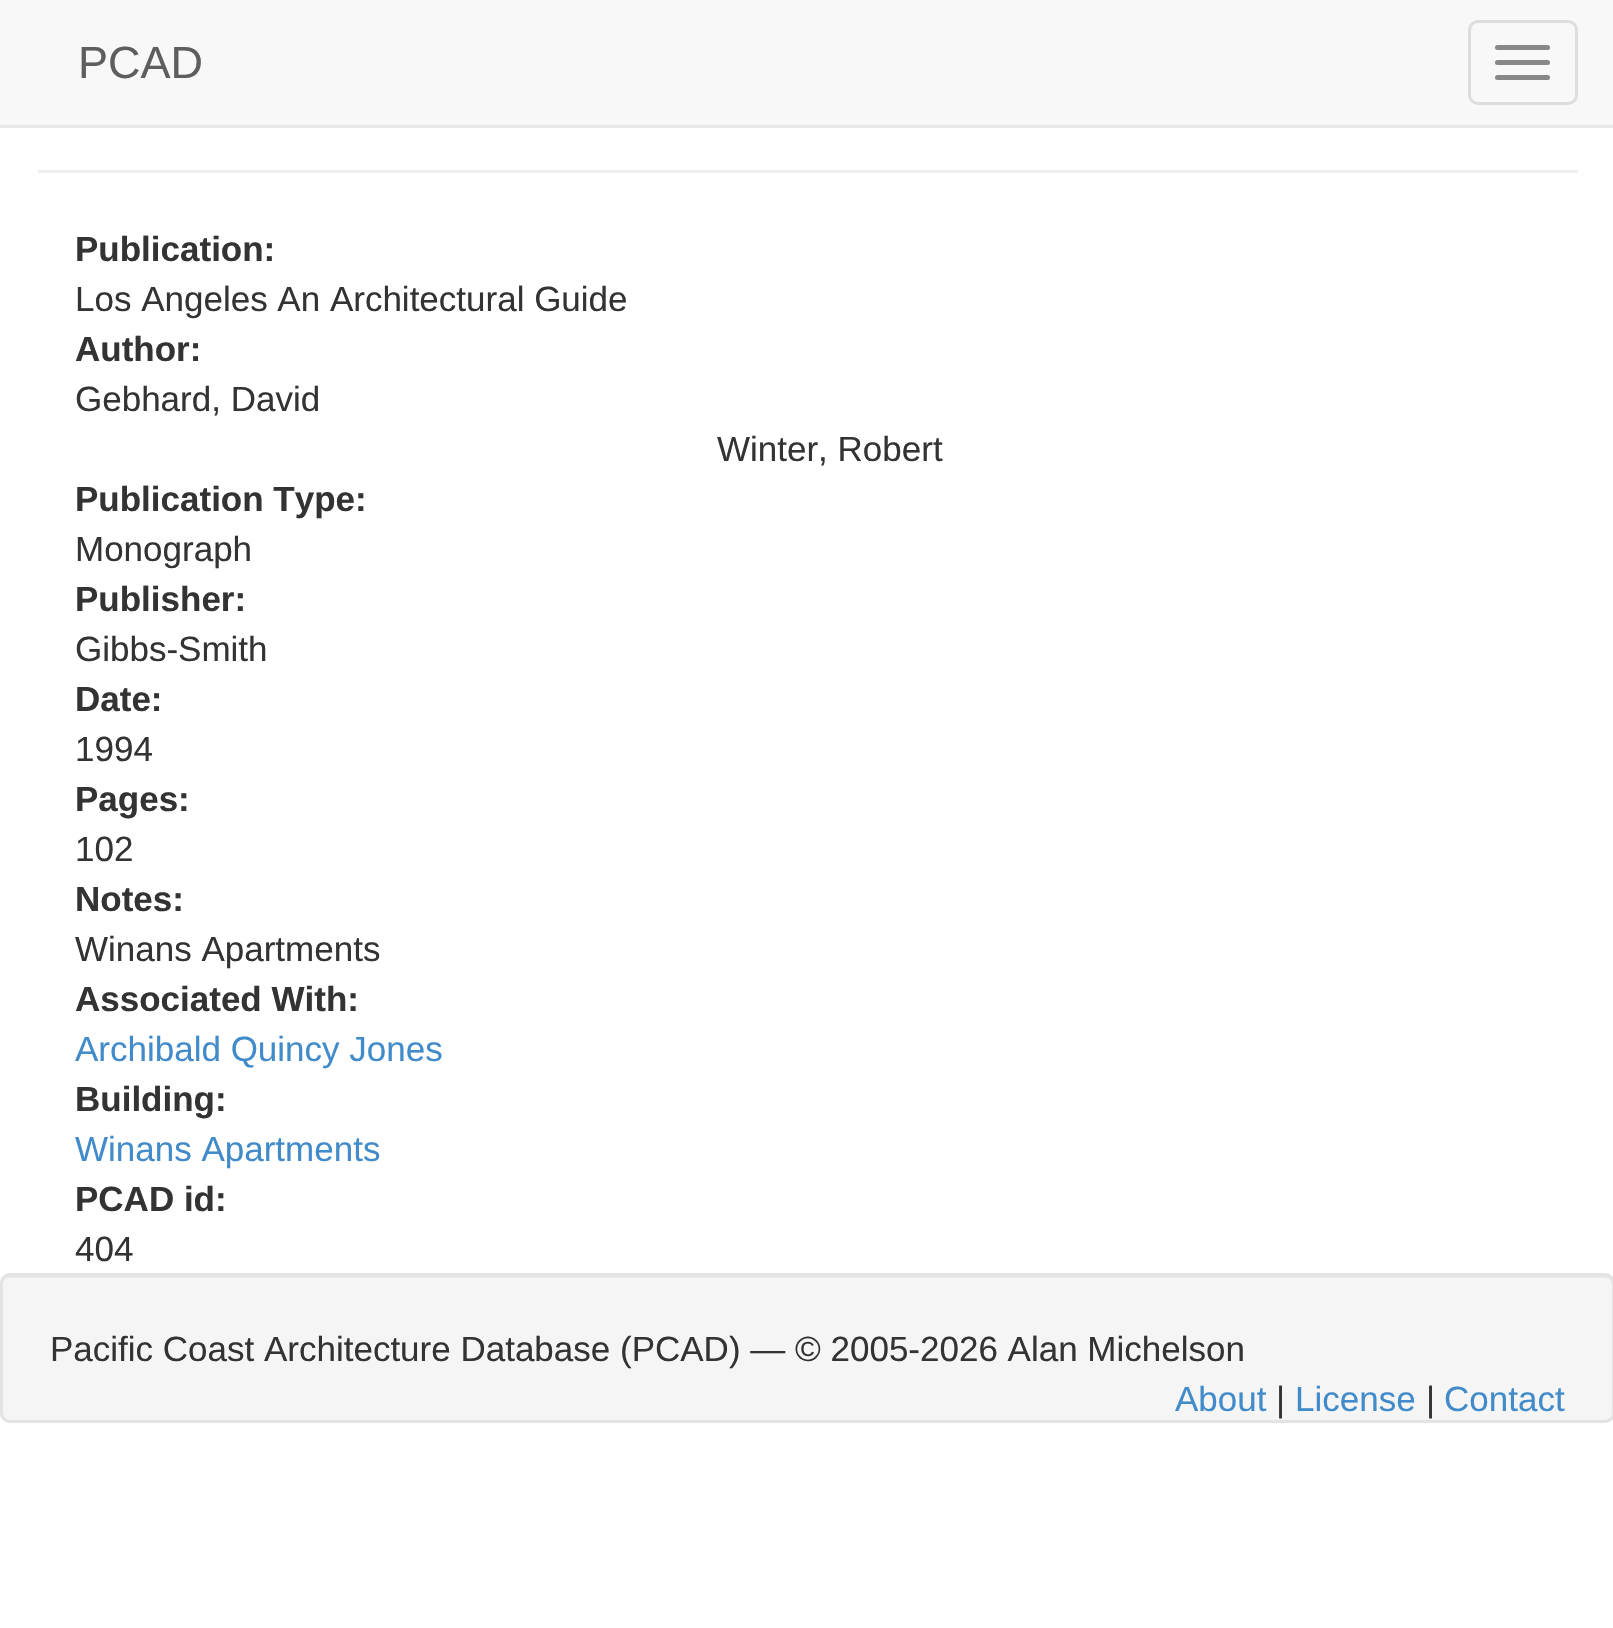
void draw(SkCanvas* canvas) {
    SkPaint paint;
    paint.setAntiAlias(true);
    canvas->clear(0xFFFFFFFF);
    paint.setColor(0xFFF8F8F8);
    canvas->drawRect(SkRect::MakeXYWH(0, 0, 1613, 125), paint);
    paint.setColor(0xFFE7E7E7);
    canvas->drawRect(SkRect::MakeXYWH(0, 125, 1613, 3), paint);
    SkFont font1(fontMgr->matchFamilyStyle("Liberation Sans", SkFontStyle::Normal()), 45);
    font1.setSubpixel(true);
    paint.setColor(0xFF5E5E5E);
    canvas->drawString("PCAD", 78, 78, font1, paint);
    paint.setStyle(SkPaint::kStroke_Style);
    paint.setStrokeWidth(3);
    paint.setColor(0xFFDDDDDD);
    canvas->drawRoundRect(SkRect::MakeXYWH(1469.5f, 21.5f, 107, 82), 8.5f, 8.5f, paint);
    paint.setStyle(SkPaint::kFill_Style);
    paint.setColor(0xFF888888);
    canvas->drawRoundRect(SkRect::MakeXYWH(1495, 45, 55, 5), 2.5f, 2.5f, paint);
    canvas->drawRoundRect(SkRect::MakeXYWH(1495, 60, 55, 5), 2.5f, 2.5f, paint);
    canvas->drawRoundRect(SkRect::MakeXYWH(1495, 75, 55, 5), 2.5f, 2.5f, paint);
    paint.setColor(0xFFEEEEEE);
    canvas->drawRect(SkRect::MakeXYWH(38, 170, 1540, 3), paint);
    SkFont font2(fontMgr->matchFamilyStyle("Liberation Sans", SkFontStyle::Bold()), 35);
    font2.setSubpixel(true);
    paint.setColor(0xFF333333);
    canvas->drawString("Publication:", 75, 261, font2, paint);
    SkFont font3(fontMgr->matchFamilyStyle("Liberation Sans", SkFontStyle::Normal()), 35);
    font3.setSubpixel(true);
    canvas->drawString("Los Angeles An Architectural Guide", 75, 311, font3, paint);
    canvas->drawString("Author:", 75, 361, font2, paint);
    canvas->drawString("Gebhard, David", 75, 411, font3, paint);
    canvas->drawString("Winter, Robert", 717, 461, font3, paint);
    canvas->drawString("Publication Type:", 75, 511, font2, paint);
    canvas->drawString("Monograph", 75, 561, font3, paint);
    canvas->drawString("Publisher:", 75, 611, font2, paint);
    canvas->drawString("Gibbs-Smith", 75, 661, font3, paint);
    canvas->drawString("Date:", 75, 711, font2, paint);
    canvas->drawString("1994", 75, 761, font3, paint);
    canvas->drawString("Pages:", 75, 811, font2, paint);
    canvas->drawString("102", 75, 861, font3, paint);
    canvas->drawString("Notes:", 75, 911, font2, paint);
    canvas->drawString("Winans Apartments", 75, 961, font3, paint);
    canvas->drawString("Associated With:", 75, 1011, font2, paint);
    paint.setColor(0xFF428BCA);
    canvas->drawString("Archibald Quincy Jones", 75, 1061, font3, paint);
    paint.setColor(0xFF333333);
    canvas->drawString("Building:", 75, 1111, font2, paint);
    paint.setColor(0xFF428BCA);
    canvas->drawString("Winans Apartments", 75, 1161, font3, paint);
    paint.setColor(0xFF333333);
    canvas->drawString("PCAD id:", 75, 1211, font2, paint);
    canvas->drawString("404", 75, 1261, font3, paint);
    paint.setColor(0xFFF5F5F5);
    canvas->drawRoundRect(SkRect::MakeXYWH(0, 1273, 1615, 150), 10, 10, paint);
    paint.setColor(0xFFE9E9E9);
    canvas->drawPath(SkPathBuilder().moveTo(10, 1278).lineTo(1605, 1278).cubicTo(1609, 1278, 1612, 1281, 1612, 1285).lineTo(1612, 1416).cubicTo(1613, 1415, 1613, 1413, 1613, 1412).lineTo(1613, 1283).cubicTo(1613, 1279, 1609, 1275, 1605, 1275).lineTo(11, 1275).cubicTo(7, 1275, 4, 1278, 3, 1281).cubicTo(5, 1279, 7, 1278, 10, 1278).close().detach(), paint);
    paint.setStyle(SkPaint::kStroke_Style);
    paint.setColor(0xFFE3E3E3);
    canvas->drawRoundRect(SkRect::MakeXYWH(1.5f, 1274.5f, 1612, 147), 8.5f, 8.5f, paint);
    paint.setStyle(SkPaint::kFill_Style);
    paint.setColor(0xFF333333);
    canvas->drawString("Pacific Coast Architecture Database (PCAD) — © 2005-2026 Alan Michelson", 50, 1361, font3, paint);
    paint.setColor(0xFF428BCA);
    canvas->drawString("About", 1175, 1411, font3, paint);
    paint.setColor(0xFF333333);
    canvas->drawString("|", 1276, 1411, font3, paint);
    paint.setColor(0xFF428BCA);
    canvas->drawString("License", 1295, 1411, font3, paint);
    paint.setColor(0xFF333333);
    canvas->drawString("|", 1426, 1411, font3, paint);
    paint.setColor(0xFF428BCA);
    canvas->drawString("Contact", 1444, 1411, font3, paint);
}
